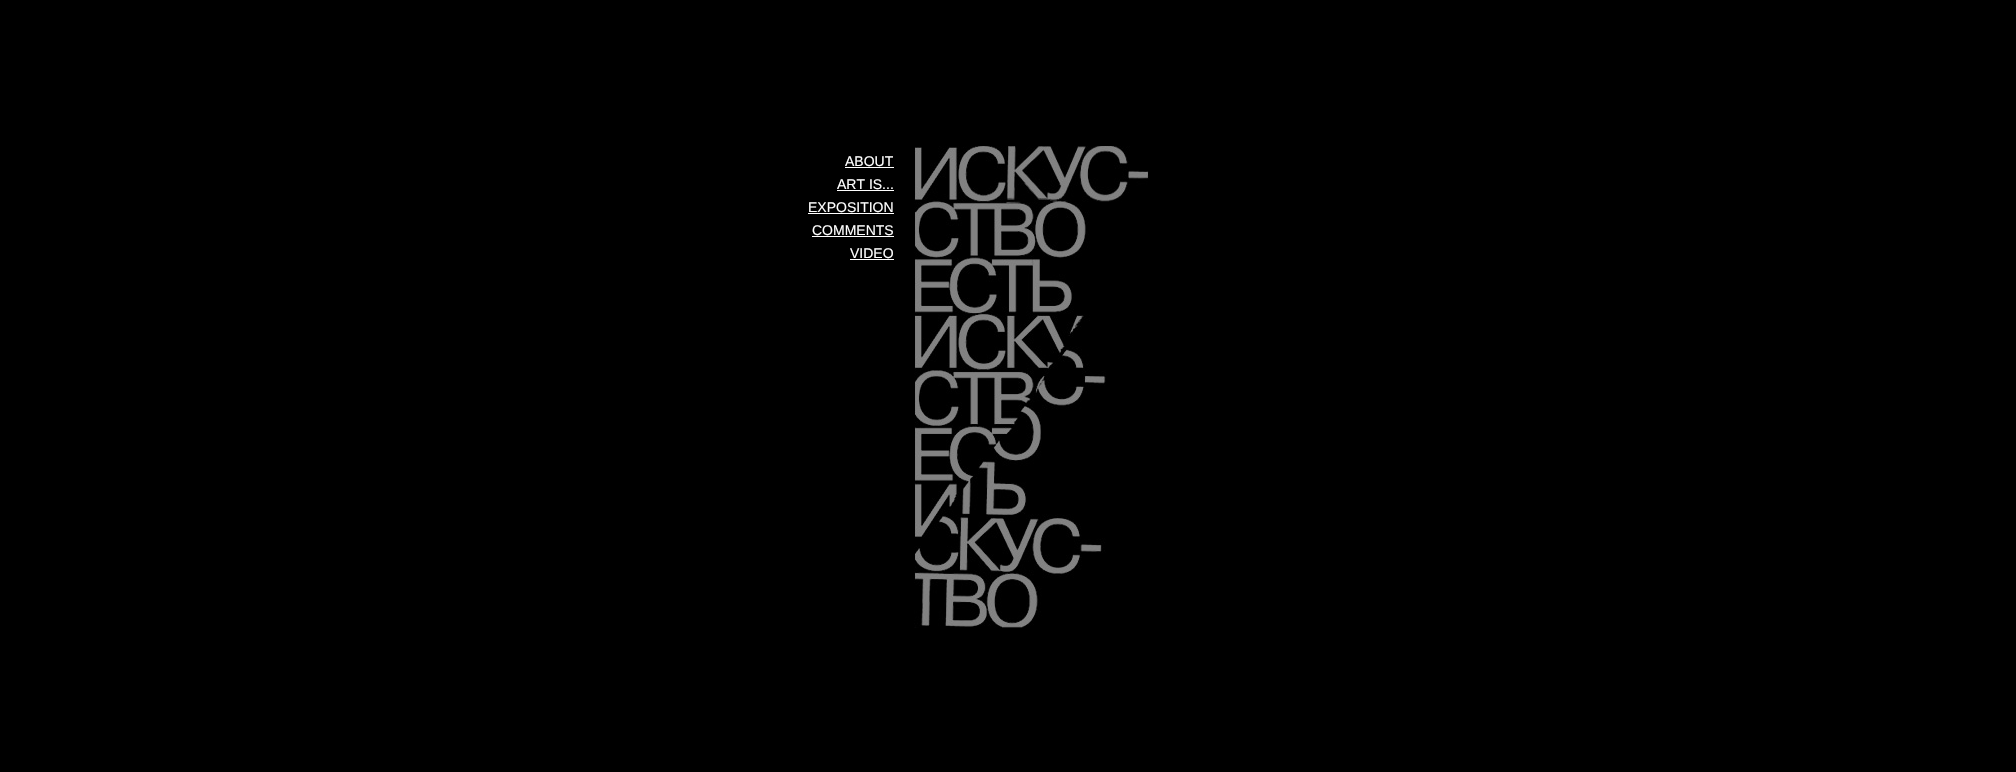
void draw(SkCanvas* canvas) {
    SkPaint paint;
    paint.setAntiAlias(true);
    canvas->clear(0xFF000000);
    SkFont font1(fontMgr->matchFamilyStyle("Liberation Sans", SkFontStyle::Normal()), 14);
    font1.setSubpixel(true);
    paint.setColor(0xFFFFFFFF);
    canvas->drawString("ABOUT", 845, 166, font1, paint);
    canvas->drawRect(SkRect::MakeXYWH(845, 167, 49, 1), paint);
    canvas->drawString("ART IS...", 837, 189, font1, paint);
    canvas->drawRect(SkRect::MakeXYWH(837, 190, 57, 1), paint);
    canvas->drawString("EXPOSITION", 808, 212, font1, paint);
    canvas->drawRect(SkRect::MakeXYWH(808, 213, 86, 1), paint);
    canvas->drawString("COMMENTS", 812, 235, font1, paint);
    canvas->drawRect(SkRect::MakeXYWH(812, 236, 82, 1), paint);
    canvas->drawString("VIDEO", 850, 258, font1, paint);
    canvas->drawRect(SkRect::MakeXYWH(850, 259, 44, 1), paint);
    canvas->drawImageRect(SkImages::DeferredFromEncodedData(SkData::MakeFromFileName("img1.png")), SkRect::MakeXYWH(914, 146, 235, 482), SkSamplingOptions());
}
